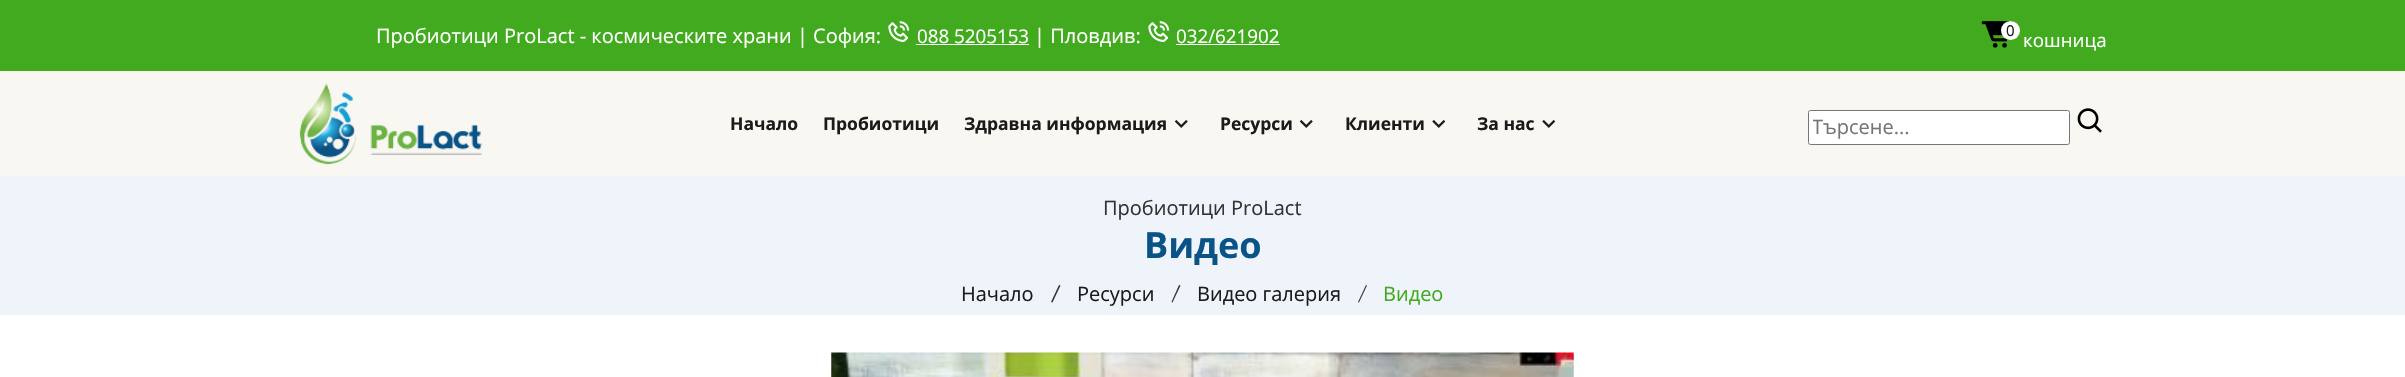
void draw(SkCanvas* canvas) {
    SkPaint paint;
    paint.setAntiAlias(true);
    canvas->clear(0xFFFFFFFF);
    paint.setColor(0xFF42AA1E);
    canvas->drawRect(SkRect::MakeXYWH(0, 0, 2405, 71), paint);
    SkFont font1(fontMgr->matchFamilyStyle("Open Sans", SkFontStyle::Normal()), 20);
    font1.setSubpixel(true);
    paint.setColor(0xFFFFFFFF);
    canvas->drawString("Пробиотици ProLact - космическите храни | София:", 376, 43, font1, paint);
    canvas->drawImageRect(SkImages::DeferredFromEncodedData(SkData::MakeFromFileName("img1.png")), SkRect::MakeXYWH(888, 21, 22, 21), SkSamplingOptions());
    SkFont font2(fontMgr->matchFamilyStyle("Open Sans", SkFontStyle::Normal()), 18.75f);
    font2.setSubpixel(true);
    canvas->drawString("088 5205153", 917, 43, font2, paint);
    canvas->drawRect(SkRect::MakeXYWH(916, 44, 113, 1), paint);
    canvas->drawString("| Пловдив:", 1034, 43, font1, paint);
    canvas->drawImageRect(SkImages::DeferredFromEncodedData(SkData::MakeFromFileName("img1.png")), SkRect::MakeXYWH(1148, 21, 22, 21), SkSamplingOptions());
    canvas->drawString("032/621902", 1176, 43, font2, paint);
    canvas->drawRect(SkRect::MakeXYWH(1176, 44, 104, 1), paint);
    canvas->drawImageRect(SkImages::DeferredFromEncodedData(SkData::MakeFromFileName("img2.png")), SkRect::MakeXYWH(1981, 21, 32, 27), SkSamplingOptions());
    canvas->drawCircle(2010.5f, 30.5f, 9.5f, paint);
    SkFont font3(fontMgr->matchFamilyStyle("Open Sans", SkFontStyle::Normal()), 15);
    font3.setSubpixel(true);
    paint.setColor(0xFF1B1B1B);
    canvas->drawString("0", 2006, 36, font3, paint);
    paint.setColor(0xFFFFFFFF);
    canvas->drawString("кошница", 2023, 47, font2, paint);
    paint.setColor(0xFFF8F7F2);
    canvas->drawRect(SkRect::MakeXYWH(0, 71, 2405, 105), paint);
    canvas->drawImageRect(SkImages::DeferredFromEncodedData(SkData::MakeFromFileName("img3.png")), SkRect::MakeXYWH(299, 83, 183, 82), SkSamplingOptions());
    SkFont font4(fontMgr->matchFamilyStyle("Open Sans", SkFontStyle::Bold()), 17.5f);
    font4.setSubpixel(true);
    paint.setColor(0xFF1B1B1B);
    canvas->drawString("Начало", 730, 130, font4, paint);
    canvas->drawString("Пробиотици", 823, 130, font4, paint);
    canvas->drawString("Здравна информация", 964, 130, font4, paint);
    canvas->drawImageRect(SkImages::DeferredFromEncodedData(SkData::MakeFromFileName("img4.png")), SkRect::MakeXYWH(1174, 120, 14, 8), SkSamplingOptions());
    canvas->drawString("Ресурси", 1220, 130, font4, paint);
    canvas->drawImageRect(SkImages::DeferredFromEncodedData(SkData::MakeFromFileName("img4.png")), SkRect::MakeXYWH(1299, 120, 14, 8), SkSamplingOptions());
    canvas->drawString("Клиенти", 1345, 130, font4, paint);
    canvas->drawImageRect(SkImages::DeferredFromEncodedData(SkData::MakeFromFileName("img5.png")), SkRect::MakeXYWH(1432, 120, 14, 8), SkSamplingOptions());
    canvas->drawString("За нас", 1477, 130, font4, paint);
    canvas->drawImageRect(SkImages::DeferredFromEncodedData(SkData::MakeFromFileName("img5.png")), SkRect::MakeXYWH(1542, 120, 14, 8), SkSamplingOptions());
    paint.setColor(0xFFFFFFFF);
    canvas->drawRoundRect(SkRect::MakeXYWH(1808.5f, 110.5f, 261, 34), 2, 2, paint);
    paint.setStyle(SkPaint::kStroke_Style);
    paint.setStrokeWidth(1);
    paint.setColor(0xFF767676);
    canvas->drawRoundRect(SkRect::MakeXYWH(1808.5f, 110.5f, 261, 34), 2, 2, paint);
    canvas->save();
    canvas->clipRect(SkRect::MakeXYWH(1813, 114, 252, 27));
    paint.setStyle(SkPaint::kFill_Style);
    paint.setColor(0xFF757575);
    canvas->drawString("Търсене...", 1812, 134, font1, paint);
    canvas->restore();
    canvas->drawImageRect(SkImages::DeferredFromEncodedData(SkData::MakeFromFileName("img6.png")), SkRect::MakeXYWH(2077, 108, 25, 25), SkSamplingOptions());
    paint.setColor(0xFFEFF4FA);
    canvas->drawRect(SkRect::MakeXYWH(0, 176, 2405, 139), paint);
    paint.setColor(0xFF333333);
    canvas->drawString("Пробиотици ProLact", 1103, 215, font1, paint);
    SkFont font5(fontMgr->matchFamilyStyle("Open Sans", SkFontStyle::Bold()), 36);
    font5.setSubpixel(true);
    paint.setColor(0xFF0A5386);
    canvas->drawString("Видео", 1144, 258, font5, paint);
    paint.setColor(0xFF1B1B1B);
    canvas->drawString("Начало", 961, 301, font1, paint);
    paint.setColor(0xFF333333);
    canvas->drawPath(SkPathBuilder().moveTo(1059, 285).lineTo(1060.5f, 285.5f).lineTo(1052.5f, 302.5f).lineTo(1051, 302).close().detach(), paint);
    paint.setColor(0xFF1B1B1B);
    canvas->drawString("Ресурси", 1077, 301, font1, paint);
    paint.setColor(0xFF333333);
    canvas->drawPath(SkPathBuilder().moveTo(1179, 285).lineTo(1180.5f, 285.5f).lineTo(1172.5f, 302.5f).lineTo(1171.5f, 302).close().detach(), paint);
    paint.setColor(0xFF1B1B1B);
    canvas->drawString("Видео галерия", 1197, 301, font1, paint);
    paint.setColor(0xFF333333);
    canvas->drawPath(SkPathBuilder().moveTo(1366, 285).lineTo(1367, 285.5f).lineTo(1359, 302.5f).lineTo(1358, 302).close().detach(), paint);
    paint.setColor(0xFF42AA1E);
    canvas->drawString("Видео", 1383, 301, font1, paint);
    canvas->drawImageRect(SkImages::DeferredFromEncodedData(SkData::MakeFromFileName("img7.png")), SkRect::MakeXYWH(831, 352, 743, 25), SkSamplingOptions());
}
